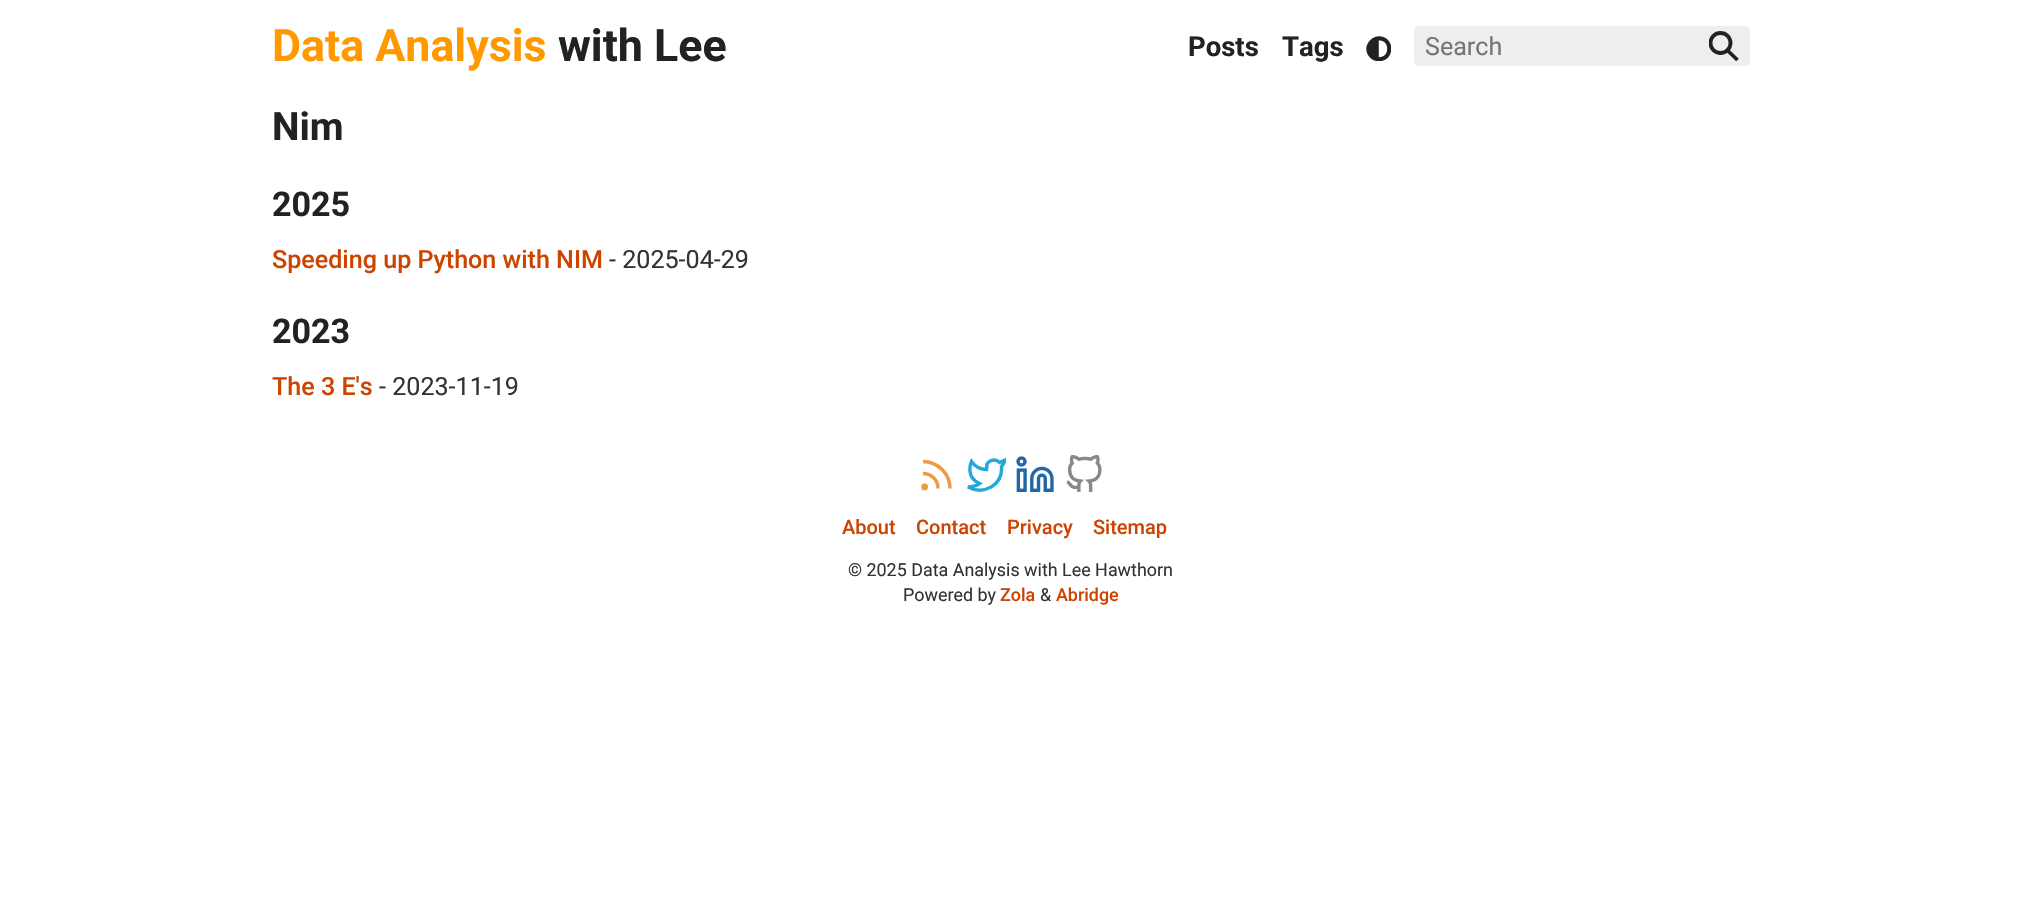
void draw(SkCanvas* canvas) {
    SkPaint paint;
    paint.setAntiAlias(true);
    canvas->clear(0xFFFFFFFF);
    SkFont font1(fontMgr->matchFamilyStyle("Roboto", SkFontStyle::Bold()), 44.75f);
    font1.setSubpixel(true);
    paint.setColor(0xFFFF9900);
    canvas->drawString("Data Analysis", 272, 61, font1, paint);
    paint.setColor(0xFF222222);
    canvas->drawString("with Lee", 558, 61, font1, paint);
    SkFont font2(fontMgr->matchFamilyStyle("Roboto", SkFontStyle::Bold()), 27.5f);
    font2.setSubpixel(true);
    canvas->drawString("Posts", 1188, 56, font2, paint);
    canvas->drawString("Tags", 1282, 56, font2, paint);
    canvas->drawImageRect(SkImages::DeferredFromEncodedData(SkData::MakeFromFileName("img1.png")), SkRect::MakeXYWH(1366, 36, 25, 25), SkSamplingOptions());
    paint.setColor(0xFFEEEEEE);
    canvas->drawRoundRect(SkRect::MakeXYWH(1414, 26, 336, 40), 5, 5, paint);
    SkFont font3(fontMgr->matchFamilyStyle("Roboto", SkFontStyle::Normal()), 25.1f);
    font3.setSubpixel(true);
    paint.setColor(0xFF757575);
    canvas->drawString("Search", 1425, 55, font3, paint);
    canvas->save();
    canvas->clipRect(SkRect::MakeXYWH(1709, 31, 30, 30));
    paint.setStyle(SkPaint::kStroke_Style);
    paint.setStrokeWidth(3.8f);
    paint.setColor(0xFF222222);
    canvas->drawCircle(1720.5f, 43, 10, paint);
    canvas->restore();
    canvas->drawPath(SkPathBuilder().moveTo(1737.5f, 60).lineTo(1726, 49).detach(), paint);
    SkFont font4(fontMgr->matchFamilyStyle("Roboto", SkFontStyle::Bold()), 39);
    font4.setSubpixel(true);
    paint.setStyle(SkPaint::kFill_Style);
    canvas->drawString("Nim", 272, 140, font4, paint);
    SkFont font5(fontMgr->matchFamilyStyle("Roboto", SkFontStyle::Bold()), 34);
    font5.setSubpixel(true);
    canvas->drawString("2025", 272, 216, font5, paint);
    SkFont font6(fontMgr->matchFamilyStyle("Roboto", SkFontStyle(500, SkFontStyle::kNormal_Width, SkFontStyle::kUpright_Slant)), 25.1f);
    font6.setSubpixel(true);
    paint.setColor(0xFFCC4400);
    canvas->drawString("Speeding up Python with NIM", 272, 268, font6, paint);
    paint.setColor(0xFF333333);
    canvas->drawString("- 2025-04-29", 609, 268, font3, paint);
    paint.setColor(0xFF222222);
    canvas->drawString("2023", 272, 343, font5, paint);
    paint.setColor(0xFFCC4400);
    canvas->drawString("The 3 E's", 272, 395, font6, paint);
    paint.setColor(0xFF333333);
    canvas->drawString("- 2023-11-19", 379, 395, font3, paint);
    paint.setStyle(SkPaint::kStroke_Style);
    paint.setStrokeWidth(3.4f);
    paint.setColor(0xFFEE9944);
    canvas->drawPath(SkPathBuilder().moveTo(923, 473.5f).cubicTo(931.5f, 473.5f, 938, 480, 938, 488.5f).moveTo(923, 461.5f).cubicTo(938, 461.5f, 950, 474, 950, 488.5f).detach(), paint);
    canvas->drawCircle(924.6f, 486.9f, 1.7f, paint);
    canvas->save();
    canvas->clipRect(SkRect::MakeXYWH(966, 455, 40, 40));
    paint.setColor(0xFF22AADD);
    canvas->drawPath(SkPathBuilder().moveTo(1005, 460).lineTo(999.5f, 462.5f).cubicTo(996, 458.5f, 989.5f, 459.5f, 987, 464).lineTo(986.5f, 469.5f).cubicTo(980.5f, 469.5f, 975, 466.5f, 971.5f, 461.5f).cubicTo(971.5f, 461.5f, 964.5f, 477, 979.5f, 483.5f).cubicTo(976, 486, 972, 487, 968, 487).cubicTo(984, 495.5f, 1003, 485, 1001.5f, 466.5f).cubicTo(1003, 464.5f, 1004.5f, 462.5f, 1005, 460).close().detach(), paint);
    canvas->restore();
    canvas->drawImageRect(SkImages::DeferredFromEncodedData(SkData::MakeFromFileName("img2.png")), SkRect::MakeXYWH(1016, 456, 38, 36), SkSamplingOptions());
    canvas->drawImageRect(SkImages::DeferredFromEncodedData(SkData::MakeFromFileName("img3.png")), SkRect::MakeXYWH(1066, 455, 36, 37), SkSamplingOptions());
    SkFont font7(fontMgr->matchFamilyStyle("Roboto", SkFontStyle(500, SkFontStyle::kNormal_Width, SkFontStyle::kUpright_Slant)), 20);
    font7.setSubpixel(true);
    paint.setStyle(SkPaint::kFill_Style);
    paint.setColor(0xFFCC4400);
    canvas->drawString("About", 842, 534, font7, paint);
    canvas->drawString("Contact", 916, 534, font7, paint);
    canvas->drawString("Privacy", 1007, 534, font7, paint);
    canvas->drawString("Sitemap", 1093, 534, font7, paint);
    SkFont font8(fontMgr->matchFamilyStyle("Roboto", SkFontStyle::Normal()), 17.9f);
    font8.setSubpixel(true);
    paint.setColor(0xFF333333);
    canvas->drawString("© 2025 Data Analysis with Lee Hawthorn", 848, 576, font8, paint);
    canvas->drawString("Powered by", 903, 601, font8, paint);
    SkFont font9(fontMgr->matchFamilyStyle("Roboto", SkFontStyle(500, SkFontStyle::kNormal_Width, SkFontStyle::kUpright_Slant)), 17.9f);
    font9.setSubpixel(true);
    paint.setColor(0xFFCC4400);
    canvas->drawString("Zola", 1000, 601, font9, paint);
    paint.setColor(0xFF333333);
    canvas->drawString("&", 1040, 601, font8, paint);
    paint.setColor(0xFFCC4400);
    canvas->drawString("Abridge", 1056, 601, font9, paint);
}
